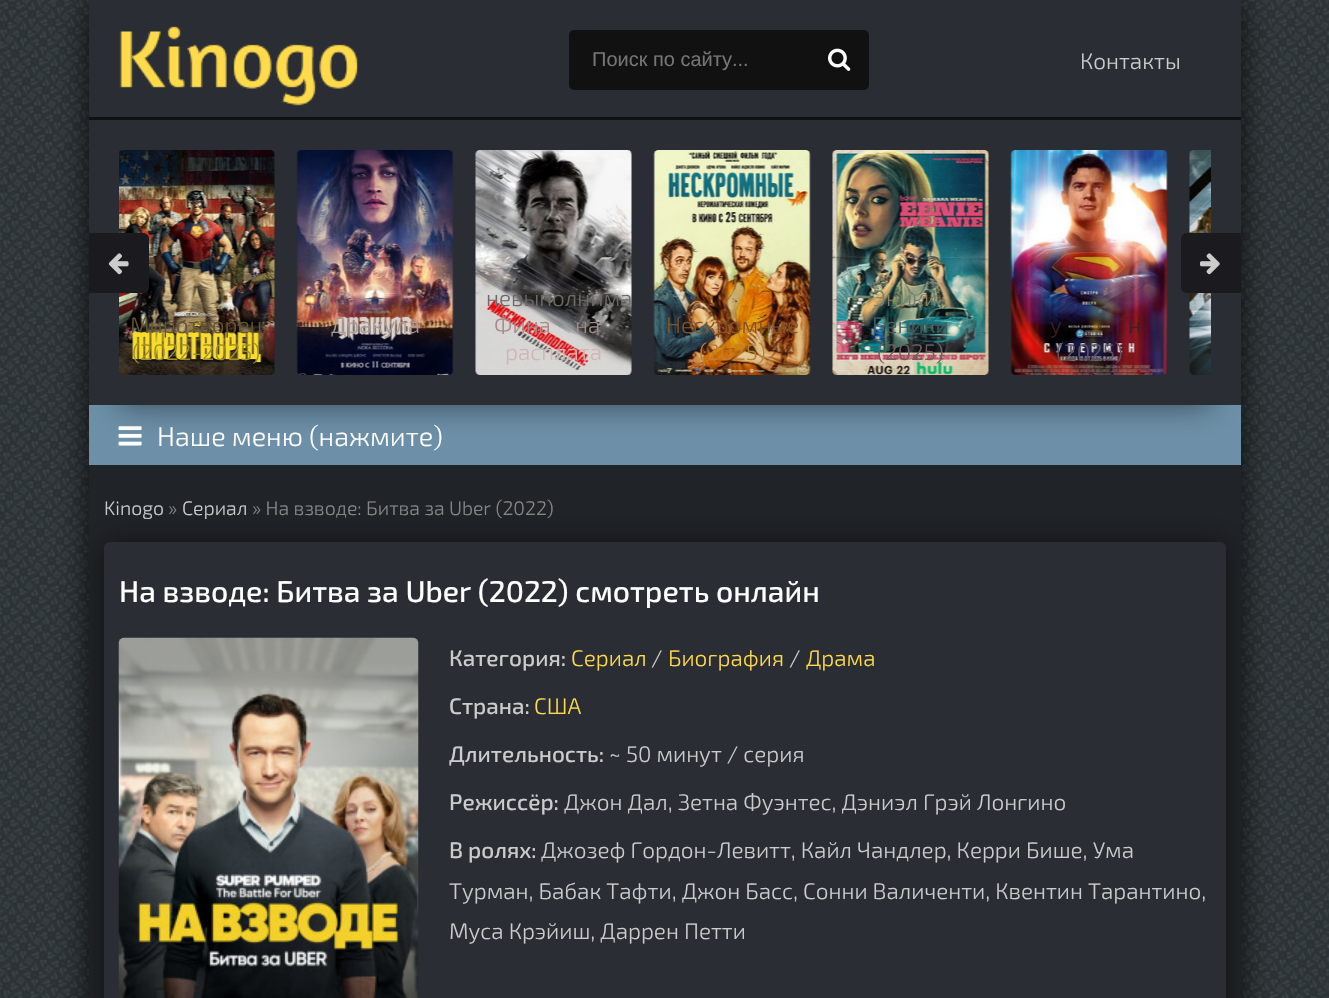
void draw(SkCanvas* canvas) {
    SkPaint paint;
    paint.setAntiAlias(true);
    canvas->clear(0xFFFFFFFF);
    canvas->drawImageRect(SkImages::DeferredFromEncodedData(SkData::MakeFromFileName("img1.png")), SkRect::MakeXYWH(0, 0, 1329, 998), SkSamplingOptions());
    paint.setColor(0xCC000000);
    paint.setMaskFilter(SkMaskFilter::MakeBlur(kNormal_SkBlurStyle, 15));
    canvas->drawRect(SkRect::MakeXYWH(89, 0, 1152, 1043), paint);
    paint.setMaskFilter(nullptr);
    paint.setColor(0xFF202328);
    canvas->drawRect(SkRect::MakeXYWH(89, 465, 1152, 533), paint);
    paint.setColor(0xFF2A2D34);
    canvas->drawRect(SkRect::MakeXYWH(89, 0, 1152, 117), paint);
    paint.setColor(0xFF111111);
    canvas->drawRect(SkRect::MakeXYWH(89, 117, 1152, 3), paint);
    canvas->drawImageRect(SkImages::DeferredFromEncodedData(SkData::MakeFromFileName("img2.png")), SkRect::MakeXYWH(119, 26, 239, 80), SkSamplingOptions());
    canvas->drawRoundRect(SkRect::MakeXYWH(570, 31, 298, 58), 4, 4, paint);
    paint.setStyle(SkPaint::kStroke_Style);
    paint.setStrokeWidth(2);
    canvas->drawRoundRect(SkRect::MakeXYWH(570, 31, 298, 58), 4, 4, paint);
    SkFont font1(fontMgr->matchFamilyStyle("Liberation Sans", SkFontStyle::Normal()), 20);
    font1.setSubpixel(true);
    paint.setStyle(SkPaint::kFill_Style);
    paint.setColor(0xFF757575);
    canvas->drawString("Поиск по сайту...", 592, 66, font1, paint);
    canvas->drawImageRect(SkImages::DeferredFromEncodedData(SkData::MakeFromFileName("img3.png")), SkRect::MakeXYWH(828, 48, 23, 23), SkSamplingOptions());
    SkFont font2(fontMgr->matchFamilyStyle("Exo 2", SkFontStyle(300, SkFontStyle::kNormal_Width, SkFontStyle::kUpright_Slant)), 22.5f);
    font2.setSubpixel(true);
    paint.setColor(0xFFCCCCCC);
    canvas->drawString("Контакты", 1080, 69, font2, paint);
    paint.setColor(0xFF6D90A8);
    canvas->drawRect(SkRect::MakeXYWH(89, 405, 1152, 60), paint);
    canvas->drawImageRect(SkImages::DeferredFromEncodedData(SkData::MakeFromFileName("img13.png")), SkRect::MakeXYWH(118, 426, 24, 20), SkSamplingOptions());
    paint.setColor(0x80000000);
    paint.setMaskFilter(SkMaskFilter::MakeBlur(kNormal_SkBlurStyle, 15));
    canvas->drawRect(SkRect::MakeXYWH(119, 180, 1092, 225), paint);
    paint.setMaskFilter(nullptr);
    paint.setColor(0xFF2A2D34);
    canvas->drawRect(SkRect::MakeXYWH(89, 120, 1152, 285), paint);
    canvas->drawImageRect(SkImages::DeferredFromEncodedData(SkData::MakeFromFileName("img6.png")), SkRect::MakeXYWH(119, 150, 156, 225), SkSamplingOptions());
    paint.setColor(0xFF1B1B1F);
    canvas->drawPath(SkPathBuilder().moveTo(89, 233).lineTo(143, 233).cubicTo(146.5f, 233, 149, 235.5f, 149, 239).lineTo(149, 287).cubicTo(149, 290.5f, 146.5f, 293, 143, 293).lineTo(89, 293).close().detach(), paint);
    canvas->drawImageRect(SkImages::DeferredFromEncodedData(SkData::MakeFromFileName("img4.png")), SkRect::MakeXYWH(108, 253, 21, 22), SkSamplingOptions());
    canvas->drawImageRect(SkImages::DeferredFromEncodedData(SkData::MakeFromFileName("img12.png")), SkRect::MakeXYWH(1189, 150, 22, 225), SkSamplingOptions());
    canvas->drawPath(SkPathBuilder().moveTo(1187, 233).lineTo(1241, 233).lineTo(1241, 293).lineTo(1187, 293).cubicTo(1183.5f, 293, 1181, 290.5f, 1181, 287).lineTo(1181, 239).cubicTo(1181, 235.5f, 1183.5f, 233, 1187, 233).close().detach(), paint);
    canvas->drawImageRect(SkImages::DeferredFromEncodedData(SkData::MakeFromFileName("img5.png")), SkRect::MakeXYWH(1200, 253, 20, 22), SkSamplingOptions());
    paint.setColor(0xFF635530);
    canvas->drawString("Миротворец", 130, 333, font2, paint);
    paint.setColor(0xFFA18E26);
    canvas->drawString("(2022-2025)", 132, 360, font2, paint);
    canvas->drawImageRect(SkImages::DeferredFromEncodedData(SkData::MakeFromFileName("img7.png")), SkRect::MakeXYWH(296, 150, 158, 225), SkSamplingOptions());
    paint.setColor(0xFFAA9993);
    canvas->drawString("Дракула", 331, 333, font2, paint);
    canvas->drawImageRect(SkImages::DeferredFromEncodedData(SkData::MakeFromFileName("img8.png")), SkRect::MakeXYWH(475, 150, 157, 225), SkSamplingOptions());
    paint.setColor(0xFF6E6A6A);
    canvas->drawString("невыполнима", 486, 306, font2, paint);
    paint.setColor(0xFFA88888);
    canvas->drawString("Фина", 494, 333, font2, paint);
    canvas->drawString("на", 575, 333, font2, paint);
    paint.setColor(0xFFD3B5B4);
    canvas->drawString("расплата", 505, 360, font2, paint);
    canvas->drawImageRect(SkImages::DeferredFromEncodedData(SkData::MakeFromFileName("img9.png")), SkRect::MakeXYWH(653, 150, 158, 225), SkSamplingOptions());
    paint.setColor(0xFF7D542B);
    canvas->drawString("Нескромные", 666, 333, font2, paint);
    paint.setColor(0xFFBD7F32);
    canvas->drawString("(2025)", 699, 360, font2, paint);
    canvas->drawImageRect(SkImages::DeferredFromEncodedData(SkData::MakeFromFileName("img10.png")), SkRect::MakeXYWH(832, 150, 157, 225), SkSamplingOptions());
    paint.setColor(0xFF7C8166);
    canvas->drawString("Эники-", 873, 306, font2, paint);
    paint.setColor(0xFF3C6064);
    canvas->drawString("Беники", 872, 333, font2, paint);
    paint.setColor(0xFF735D5E);
    canvas->drawString("(2025)", 877, 360, font2, paint);
    canvas->drawImageRect(SkImages::DeferredFromEncodedData(SkData::MakeFromFileName("img11.png")), SkRect::MakeXYWH(1010, 150, 158, 225), SkSamplingOptions());
    paint.setColor(0xFF3E1D25);
    canvas->drawString("у", 1050, 333, font2, paint);
    canvas->drawString("н", 1128, 333, font2, paint);
    paint.setColor(0xFF605161);
    canvas->drawString("(2025)", 1056, 360, font2, paint);
    SkFont font3(fontMgr->matchFamilyStyle("Exo 2", SkFontStyle(300, SkFontStyle::kNormal_Width, SkFontStyle::kUpright_Slant)), 27);
    font3.setSubpixel(true);
    paint.setColor(0xFFFFFFFF);
    canvas->drawString("Наше меню (нажмите)", 157, 446, font3, paint);
    canvas->save();
    canvas->clipRect(SkRect::MakeXYWH(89, 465, 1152, 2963));
    paint.setColor(0x80000000);
    paint.setMaskFilter(SkMaskFilter::MakeBlur(kNormal_SkBlurStyle, 15));
    canvas->drawRoundRect(SkRect::MakeXYWH(104, 542, 1122, 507), 6, 6, paint);
    paint.setMaskFilter(nullptr);
    canvas->restore();
    SkFont font4(fontMgr->matchFamilyStyle("Exo 2", SkFontStyle(300, SkFontStyle::kNormal_Width, SkFontStyle::kUpright_Slant)), 19.5f);
    font4.setSubpixel(true);
    paint.setColor(0xFFCCCCCC);
    canvas->drawString("Kinogo", 104, 515, font4, paint);
    paint.setColor(0xFF888888);
    canvas->drawString("»", 168, 515, font4, paint);
    paint.setColor(0xFFCCCCCC);
    canvas->drawString("Сериал", 182, 515, font4, paint);
    paint.setColor(0xFF888888);
    canvas->drawString("» На взводе: Битва за Uber (2022)", 252, 515, font4, paint);
    paint.setColor(0xFF2A2D34);
    canvas->drawRoundRect(SkRect::MakeXYWH(104, 542, 1122, 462), 6, 6, paint);
    SkFont font5(fontMgr->matchFamilyStyle("Exo 2", SkFontStyle(500, SkFontStyle::kNormal_Width, SkFontStyle::kUpright_Slant)), 30);
    font5.setSubpixel(true);
    paint.setColor(0xFFFFFFFF);
    canvas->drawString("На взводе: Битва за Uber (2022) смотреть онлайн", 119, 602, font5, paint);
    canvas->drawImageRect(SkImages::DeferredFromEncodedData(SkData::MakeFromFileName("img14.png")), SkRect::MakeXYWH(118, 637, 301, 361), SkSamplingOptions());
    SkFont font6(fontMgr->matchFamilyStyle("Exo 2", SkFontStyle(500, SkFontStyle::kNormal_Width, SkFontStyle::kUpright_Slant)), 22.5f);
    font6.setSubpixel(true);
    paint.setColor(0xFFCCCCCC);
    canvas->drawString("Категория:", 449, 666, font6, paint);
    paint.setColor(0xFFFFDB4C);
    canvas->drawString("Сериал", 571, 666, font2, paint);
    paint.setColor(0xFFCCCCCC);
    canvas->drawString("/", 651, 666, font2, paint);
    paint.setColor(0xFFFFDB4C);
    canvas->drawString("Биография", 668, 666, font2, paint);
    paint.setColor(0xFFCCCCCC);
    canvas->drawString("/", 789, 666, font2, paint);
    paint.setColor(0xFFFFDB4C);
    canvas->drawString("Драма", 806, 666, font2, paint);
    paint.setColor(0xFFCCCCCC);
    canvas->drawString("Страна:", 449, 714, font6, paint);
    paint.setColor(0xFFFFDB4C);
    canvas->drawString("США", 534, 714, font2, paint);
    paint.setColor(0xFFCCCCCC);
    canvas->drawString("Длительность:", 449, 762, font6, paint);
    canvas->drawString("~ 50 минут / серия", 609, 762, font2, paint);
    canvas->drawString("Режиссёр:", 449, 810, font6, paint);
    canvas->drawString("Джон Дал, Зетна Фуэнтес, Дэниэл Грэй Лонгино", 564, 810, font2, paint);
    canvas->drawString("В ролях:", 449, 858, font6, paint);
    canvas->drawString("Джозеф Гордон-Левитт, Кайл Чандлер, Керри Бише, Ума", 541, 858, font2, paint);
    canvas->drawString("Турман, Бабак Тафти, Джон Басс, Сонни Валиченти, Квентин Тарантино,", 449, 899, font2, paint);
    canvas->drawString("Муса Крэйиш, Даррен Петти", 449, 939, font2, paint);
}
